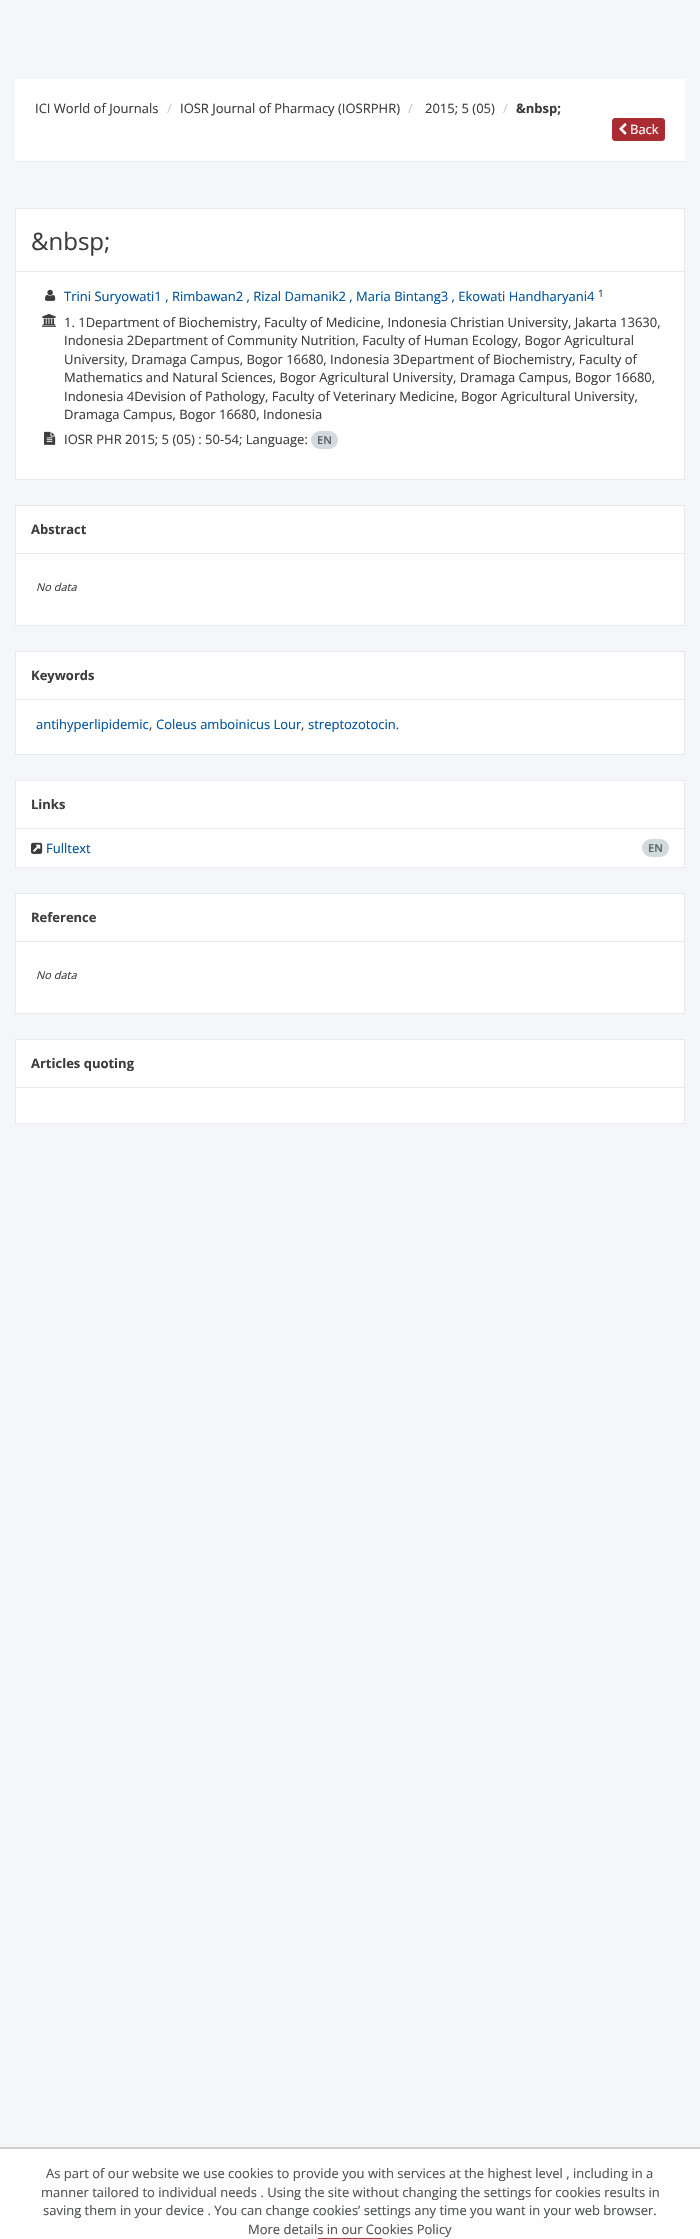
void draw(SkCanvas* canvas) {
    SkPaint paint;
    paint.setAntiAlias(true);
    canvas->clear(0xFFFEFEFE);
    paint.setColor(0xFFF4F6FA);
    canvas->drawRect(SkRect::MakeXYWH(0, 0, 700, 2147), paint);
    paint.setColor(0xFFFFFFFF);
    canvas->drawRect(SkRect::MakeXYWH(15, 79, 670, 82), paint);
    paint.setColor(0xFFE7EAEC);
    canvas->drawRect(SkRect::MakeXYWH(15, 161, 670, 1), paint);
    SkFont font1(fontMgr->matchFamilyStyle("Open Sans", SkFontStyle::Normal()), 13);
    font1.setSubpixel(true);
    paint.setColor(0xFF3D3D3D);
    canvas->drawString("ICI World of Journals", 35, 113, font1, paint);
    paint.setColor(0xFFCCCCCC);
    canvas->drawString("/", 167, 113, font1, paint);
    paint.setColor(0xFF3D3D3D);
    canvas->drawString("IOSR Journal of Pharmacy (IOSRPHR)", 180, 113, font1, paint);
    paint.setColor(0xFFCCCCCC);
    canvas->drawString("/", 408, 113, font1, paint);
    paint.setColor(0xFF3D3D3D);
    canvas->drawString("2015; 5 (05)", 425, 113, font1, paint);
    paint.setColor(0xFFCCCCCC);
    canvas->drawString("/", 503, 113, font1, paint);
    SkFont font2(fontMgr->matchFamilyStyle("Open Sans", SkFontStyle::Bold()), 13);
    font2.setSubpixel(true);
    paint.setColor(0xFF3D3D3D);
    canvas->drawString("&nbsp;", 516, 113, font2, paint);
    paint.setColor(0xFFAA2B31);
    canvas->drawRoundRect(SkRect::MakeXYWH(612.5f, 118.5f, 52, 22), 2.5f, 2.5f, paint);
    paint.setStyle(SkPaint::kStroke_Style);
    paint.setStrokeWidth(1);
    canvas->drawRoundRect(SkRect::MakeXYWH(612.5f, 118.5f, 52, 22), 2.5f, 2.5f, paint);
    canvas->drawImageRect(SkImages::DeferredFromEncodedData(SkData::MakeFromFileName("img1.png")), SkRect::MakeXYWH(619, 123, 8, 12), SkSamplingOptions());
    paint.setStyle(SkPaint::kFill_Style);
    paint.setColor(0xFFFFFFFF);
    canvas->drawString("Back", 630, 134, font1, paint);
    canvas->drawRect(SkRect::MakeXYWH(16, 209, 668, 62), paint);
    paint.setColor(0xFFE7EAEC);
    canvas->drawRect(SkRect::MakeXYWH(15, 208, 670, 1), paint);
    canvas->drawRect(SkRect::MakeXYWH(684, 208, 1, 63), paint);
    canvas->drawRect(SkRect::MakeXYWH(15, 208, 1, 63), paint);
    SkFont font3(fontMgr->matchFamilyStyle("Open Sans", SkFontStyle::Normal()), 24);
    font3.setSubpixel(true);
    paint.setColor(0xFF3D3D3D);
    canvas->drawString("&nbsp;", 31, 250, font3, paint);
    paint.setColor(0xFFFFFFFF);
    canvas->drawRect(SkRect::MakeXYWH(15.5f, 271.5f, 669, 208), paint);
    paint.setStyle(SkPaint::kStroke_Style);
    paint.setColor(0xFFE7EAEC);
    canvas->drawRect(SkRect::MakeXYWH(15.5f, 271.5f, 669, 208), paint);
    canvas->drawImageRect(SkImages::DeferredFromEncodedData(SkData::MakeFromFileName("img2.png")), SkRect::MakeXYWH(45, 289, 11, 12), SkSamplingOptions());
    paint.setStyle(SkPaint::kFill_Style);
    paint.setColor(0xFF00539B);
    canvas->drawString("Trini Suryowati1 , Rimbawan2 , Rizal Damanik2 , Maria Bintang3 , Ekowati Handharyani4", 64, 301, font1, paint);
    SkFont font4(fontMgr->matchFamilyStyle("Open Sans", SkFontStyle::Normal()), 10);
    font4.setSubpixel(true);
    paint.setColor(0xFF3D3D3D);
    canvas->drawString("1", 598, 297, font4, paint);
    canvas->drawImageRect(SkImages::DeferredFromEncodedData(SkData::MakeFromFileName("img3.png")), SkRect::MakeXYWH(42, 313, 14, 14), SkSamplingOptions());
    canvas->drawString("1. 1Department of Biochemistry, Faculty of Medicine, Indonesia Christian University, Jakarta 13630,", 64, 327, font1, paint);
    canvas->drawString("Indonesia 2Department of Community Nutrition, Faculty of Human Ecology, Bogor Agricultural", 64, 345, font1, paint);
    canvas->drawString("University, Dramaga Campus, Bogor 16680, Indonesia 3Department of Biochemistry, Faculty of", 64, 364, font1, paint);
    canvas->drawString("Mathematics and Natural Sciences, Bogor Agricultural University, Dramaga Campus, Bogor 16680,", 64, 382, font1, paint);
    canvas->drawString("Indonesia 4Devision of Pathology, Faculty of Veterinary Medicine, Bogor Agricultural University,", 64, 401, font1, paint);
    canvas->drawString("Dramaga Campus, Bogor 16680, Indonesia", 64, 419, font1, paint);
    canvas->drawImageRect(SkImages::DeferredFromEncodedData(SkData::MakeFromFileName("img4.png")), SkRect::MakeXYWH(44, 431, 12, 14), SkSamplingOptions());
    canvas->drawString("IOSR PHR 2015; 5 (05) : 50-54; Language:", 64, 444, font1, paint);
    paint.setColor(0xFFD1DADE);
    canvas->drawRoundRect(SkRect::MakeXYWH(311, 431, 27, 18), 9, 9, paint);
    SkFont font5(fontMgr->matchFamilyStyle("Open Sans", SkFontStyle(600, SkFontStyle::kNormal_Width, SkFontStyle::kUpright_Slant)), 11);
    font5.setSubpixel(true);
    paint.setColor(0xFF5E5E5E);
    canvas->drawString("EN", 317, 444, font5, paint);
    paint.setColor(0xFFFFFFFF);
    canvas->drawRect(SkRect::MakeXYWH(16, 506, 668, 47), paint);
    paint.setColor(0xFFE7EAEC);
    canvas->drawRect(SkRect::MakeXYWH(15, 505, 670, 1), paint);
    canvas->drawRect(SkRect::MakeXYWH(684, 505, 1, 48), paint);
    canvas->drawRect(SkRect::MakeXYWH(15, 505, 1, 48), paint);
    paint.setColor(0xFF3D3D3D);
    canvas->drawString("Abstract", 31, 534, font2, paint);
    paint.setColor(0xFFFFFFFF);
    canvas->drawRect(SkRect::MakeXYWH(15.5f, 553.5f, 669, 72), paint);
    paint.setStyle(SkPaint::kStroke_Style);
    paint.setColor(0xFFE7EAEC);
    canvas->drawRect(SkRect::MakeXYWH(15.5f, 553.5f, 669, 72), paint);
    SkFont font6(fontMgr->matchFamilyStyle("Open Sans", SkFontStyle::Italic()), 11);
    font6.setSubpixel(true);
    paint.setStyle(SkPaint::kFill_Style);
    paint.setColor(0xFF3D3D3D);
    canvas->drawString("No data", 36, 591, font6, paint);
    paint.setColor(0xFFFFFFFF);
    canvas->drawRect(SkRect::MakeXYWH(16, 652, 668, 47), paint);
    paint.setColor(0xFFE7EAEC);
    canvas->drawRect(SkRect::MakeXYWH(15, 651, 670, 1), paint);
    canvas->drawRect(SkRect::MakeXYWH(684, 651, 1, 48), paint);
    canvas->drawRect(SkRect::MakeXYWH(15, 651, 1, 48), paint);
    paint.setColor(0xFF3D3D3D);
    canvas->drawString("Keywords", 31, 680, font2, paint);
    paint.setColor(0xFFFFFFFF);
    canvas->drawRect(SkRect::MakeXYWH(15.5f, 699.5f, 669, 55), paint);
    paint.setStyle(SkPaint::kStroke_Style);
    paint.setColor(0xFFE7EAEC);
    canvas->drawRect(SkRect::MakeXYWH(15.5f, 699.5f, 669, 55), paint);
    paint.setStyle(SkPaint::kFill_Style);
    paint.setColor(0xFF00539B);
    canvas->drawString("antihyperlipidemic", 36, 729, font1, paint);
    paint.setColor(0xFF3D3D3D);
    canvas->drawString(",", 149, 729, font1, paint);
    paint.setColor(0xFF00539B);
    canvas->drawString("Coleus amboinicus Lour", 156, 729, font1, paint);
    paint.setColor(0xFF3D3D3D);
    canvas->drawString(",", 301, 729, font1, paint);
    paint.setColor(0xFF00539B);
    canvas->drawString("streptozotocin.", 308, 729, font1, paint);
    paint.setColor(0xFFFFFFFF);
    canvas->drawRect(SkRect::MakeXYWH(16, 781, 668, 47), paint);
    paint.setColor(0xFFE7EAEC);
    canvas->drawRect(SkRect::MakeXYWH(15, 780, 670, 1), paint);
    canvas->drawRect(SkRect::MakeXYWH(684, 780, 1, 48), paint);
    canvas->drawRect(SkRect::MakeXYWH(15, 780, 1, 48), paint);
    paint.setColor(0xFF3D3D3D);
    canvas->drawString("Links", 31, 809, font2, paint);
    paint.setColor(0xFFFFFFFF);
    canvas->drawRect(SkRect::MakeXYWH(15.5f, 828.5f, 669, 39), paint);
    paint.setStyle(SkPaint::kStroke_Style);
    paint.setColor(0xFFE7EAEC);
    canvas->drawRect(SkRect::MakeXYWH(15.5f, 828.5f, 669, 39), paint);
    canvas->drawImageRect(SkImages::DeferredFromEncodedData(SkData::MakeFromFileName("img5.png")), SkRect::MakeXYWH(31, 842, 12, 12), SkSamplingOptions());
    paint.setStyle(SkPaint::kFill_Style);
    paint.setColor(0xFF00539B);
    canvas->drawString("Fulltext", 46, 853, font1, paint);
    paint.setColor(0xFFD1DADE);
    canvas->drawRoundRect(SkRect::MakeXYWH(642, 839, 27, 18), 9, 9, paint);
    paint.setColor(0xFF5E5E5E);
    canvas->drawString("EN", 648, 852, font5, paint);
    paint.setColor(0xFFFFFFFF);
    canvas->drawRect(SkRect::MakeXYWH(16, 894, 668, 47), paint);
    paint.setColor(0xFFE7EAEC);
    canvas->drawRect(SkRect::MakeXYWH(15, 893, 670, 1), paint);
    canvas->drawRect(SkRect::MakeXYWH(684, 893, 1, 48), paint);
    canvas->drawRect(SkRect::MakeXYWH(15, 893, 1, 48), paint);
    paint.setColor(0xFF3D3D3D);
    canvas->drawString("Reference", 31, 922, font2, paint);
    paint.setColor(0xFFFFFFFF);
    canvas->drawRect(SkRect::MakeXYWH(15.5f, 941.5f, 669, 72), paint);
    paint.setStyle(SkPaint::kStroke_Style);
    paint.setColor(0xFFE7EAEC);
    canvas->drawRect(SkRect::MakeXYWH(15.5f, 941.5f, 669, 72), paint);
    paint.setStyle(SkPaint::kFill_Style);
    paint.setColor(0xFF3D3D3D);
    canvas->drawString("No data", 36, 979, font6, paint);
    paint.setColor(0xFFFFFFFF);
    canvas->drawRect(SkRect::MakeXYWH(16, 1040, 668, 47), paint);
    paint.setColor(0xFFE7EAEC);
    canvas->drawRect(SkRect::MakeXYWH(15, 1039, 670, 1), paint);
    canvas->drawRect(SkRect::MakeXYWH(684, 1039, 1, 48), paint);
    canvas->drawRect(SkRect::MakeXYWH(15, 1039, 1, 48), paint);
    paint.setColor(0xFF3D3D3D);
    canvas->drawString("Articles quoting", 31, 1068, font2, paint);
    paint.setColor(0xFFFFFFFF);
    canvas->drawRect(SkRect::MakeXYWH(15.5f, 1087.5f, 669, 36), paint);
    paint.setStyle(SkPaint::kStroke_Style);
    paint.setColor(0xFFE7EAEC);
    canvas->drawRect(SkRect::MakeXYWH(15.5f, 1087.5f, 669, 36), paint);
    paint.setStyle(SkPaint::kFill_Style);
    paint.setColor(0xFFD0D0D1);
    canvas->drawRect(SkRect::MakeXYWH(0, 2147, 700, 2), paint);
    paint.setColor(0xFF4F5050);
    canvas->drawString("As part of our website we use cookies to provide you with services at the highest level , including in a", 46, 2178, font1, paint);
    canvas->drawString("manner tailored to individual needs . Using the site without changing the settings for cookies results in", 41, 2197, font1, paint);
    canvas->drawString("saving them in your device . You can change cookies’ settings any time you want in your web browser.", 43, 2215, font1, paint);
    canvas->drawString("More details in our Cookies Policy", 248, 2234, font1, paint);
    paint.setColor(0xFFB13F45);
    canvas->drawRoundRect(SkRect::MakeXYWH(317, 2238, 66, 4), 3, 3, paint);
}
